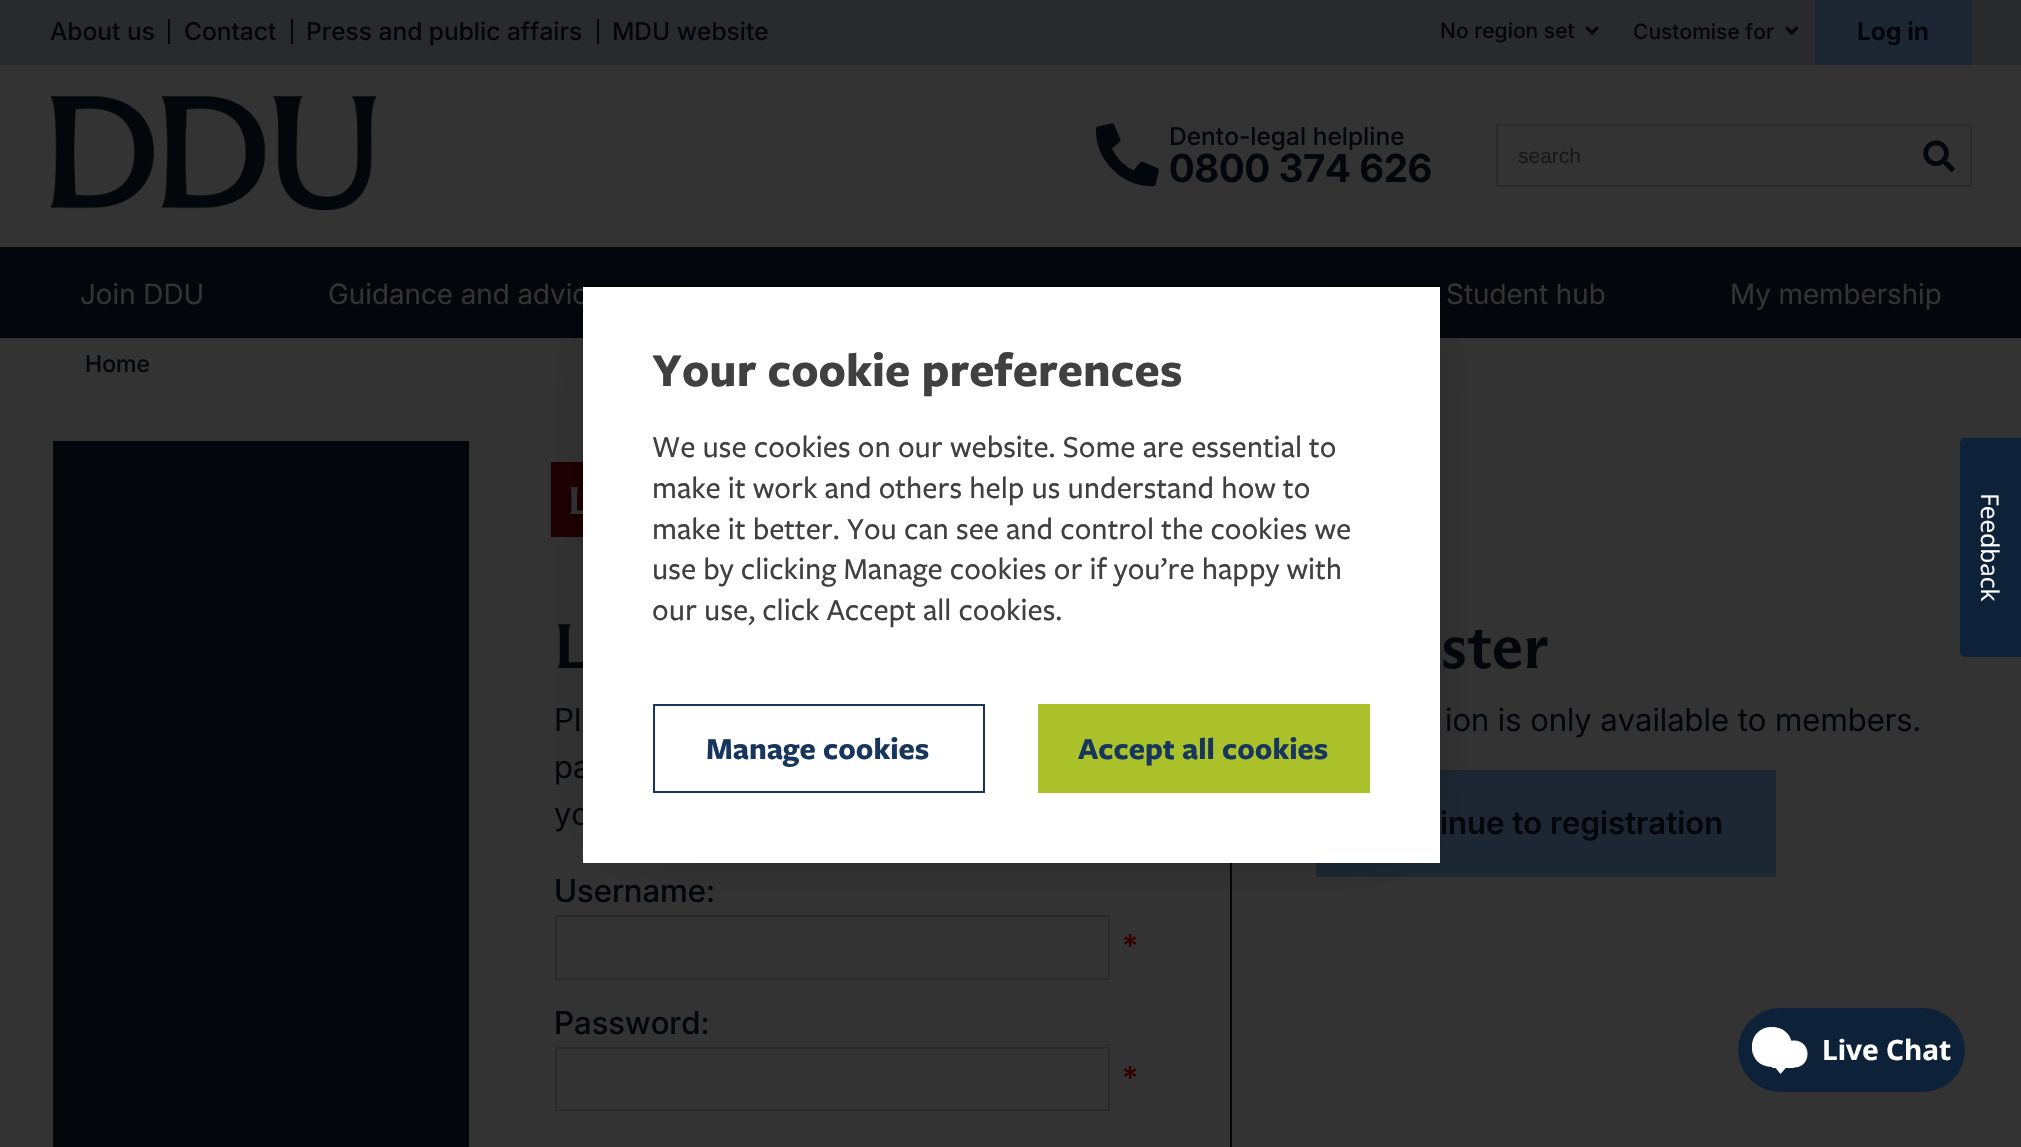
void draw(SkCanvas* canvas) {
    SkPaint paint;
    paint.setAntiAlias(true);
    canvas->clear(0xFF333333);
    paint.setColor(0xFF292A2B);
    canvas->drawRect(SkRect::MakeXYWH(0, 0, 2021, 65), paint);
    paint.setColor(0xFF03070B);
    canvas->drawRect(SkRect::MakeXYWH(168, 19, 2, 25), paint);
    SkFont font1(fontMgr->matchFamilyStyle("Inter", SkFontStyle(500, SkFontStyle::kNormal_Width, SkFontStyle::kUpright_Slant)), 24.5f);
    font1.setSubpixel(true);
    canvas->drawString("About us", 50, 40, font1, paint);
    canvas->drawRect(SkRect::MakeXYWH(291, 19, 2, 25), paint);
    canvas->drawString("Contact", 184, 40, font1, paint);
    canvas->drawRect(SkRect::MakeXYWH(597, 19, 2, 25), paint);
    canvas->drawString("Press and public affairs", 306, 40, font1, paint);
    canvas->drawString("MDU website", 612, 40, font1, paint);
    SkFont font2(fontMgr->matchFamilyStyle("Inter", SkFontStyle(500, SkFontStyle::kNormal_Width, SkFontStyle::kUpright_Slant)), 21);
    font2.setSubpixel(true);
    canvas->drawString("No region set", 1440, 38, font2, paint);
    canvas->drawImageRect(SkImages::DeferredFromEncodedData(SkData::MakeFromFileName("img1.png")), SkRect::MakeXYWH(1585, 26, 14, 9), SkSamplingOptions());
    canvas->drawString("Customise for", 1633, 39, font2, paint);
    canvas->drawImageRect(SkImages::DeferredFromEncodedData(SkData::MakeFromFileName("img2.png")), SkRect::MakeXYWH(1785, 26, 14, 9), SkSamplingOptions());
    paint.setColor(0xFF1C2733);
    canvas->drawRect(SkRect::MakeXYWH(1815, 0, 157, 65), paint);
    SkFont font3(fontMgr->matchFamilyStyle("Inter", SkFontStyle::Bold()), 24.5f);
    font3.setSubpixel(true);
    paint.setColor(0xFF03070B);
    canvas->drawString("Log in", 1857, 40, font3, paint);
    canvas->drawImageRect(SkImages::DeferredFromEncodedData(SkData::MakeFromFileName("img3.png")), SkRect::MakeXYWH(50, 96, 327, 114), SkSamplingOptions());
    canvas->drawImageRect(SkImages::DeferredFromEncodedData(SkData::MakeFromFileName("img4.png")), SkRect::MakeXYWH(1095, 123, 64, 64), SkSamplingOptions());
    canvas->drawString("Dento-legal helpline", 1169, 145, font1, paint);
    SkFont font4(fontMgr->matchFamilyStyle("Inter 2", SkFontStyle::Bold()), 38.5f);
    font4.setSubpixel(true);
    canvas->drawString("0800 374 626", 1169, 182, font4, paint);
    paint.setStyle(SkPaint::kStroke_Style);
    paint.setStrokeWidth(2);
    paint.setColor(0xFF2A2A2A);
    canvas->drawRect(SkRect::MakeXYWH(1497, 125, 474, 61), paint);
    SkFont font5(fontMgr->matchFamilyStyle("Liberation Sans", SkFontStyle::Normal()), 21);
    font5.setSubpixel(true);
    paint.setStyle(SkPaint::kFill_Style);
    paint.setColor(0xFF171717);
    canvas->drawString("search", 1518, 163, font5, paint);
    canvas->drawImageRect(SkImages::DeferredFromEncodedData(SkData::MakeFromFileName("img5.png")), SkRect::MakeXYWH(1923, 140, 32, 32), SkSamplingOptions());
    paint.setColor(0xFF03070B);
    canvas->drawRect(SkRect::MakeXYWH(0, 247, 2021, 91), paint);
    SkFont font6(fontMgr->matchFamilyStyle("Inter", SkFontStyle::Normal()), 28);
    font6.setSubpixel(true);
    paint.setColor(0xFF333333);
    canvas->drawString("Join DDU", 80, 304, font6, paint);
    canvas->drawString("Guidance and advic", 328, 304, font6, paint);
    canvas->drawString("Student hub", 1446, 304, font6, paint);
    canvas->drawString("My membership", 1730, 304, font6, paint);
    SkFont font7(fontMgr->matchFamilyStyle("Inter", SkFontStyle(500, SkFontStyle::kNormal_Width, SkFontStyle::kUpright_Slant)), 23);
    font7.setSubpixel(true);
    paint.setColor(0xFF03070B);
    canvas->drawString("Home", 85, 372, font7, paint);
    canvas->drawRect(SkRect::MakeXYWH(53, 441, 416, 706), paint);
    paint.setColor(0xFF1D0002);
    canvas->drawRect(SkRect::MakeXYWH(551, 462, 32, 75), paint);
    SkFont font8(fontMgr->matchFamilyStyle("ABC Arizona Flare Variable", SkFontStyle::Bold()), 38.5f);
    font8.setSubpixel(true);
    paint.setColor(0xFF333333);
    canvas->drawString("L", 568, 514, font8, paint);
    paint.setColor(0xFF03070B);
    canvas->drawRect(SkRect::MakeXYWH(1230, 863, 2, 284), paint);
    SkFont font9(fontMgr->matchFamilyStyle("ABC Arizona Flare Variable", SkFontStyle::Bold()), 63);
    font9.setSubpixel(true);
    canvas->drawString("L", 554, 668, font9, paint);
    SkFont font10(fontMgr->matchFamilyStyle("Inter 2", SkFontStyle::Normal()), 31.5f);
    font10.setSubpixel(true);
    canvas->drawString("Pl", 554, 731, font10, paint);
    canvas->drawString("pa", 554, 778, font10, paint);
    canvas->drawString("yo", 554, 825, font10, paint);
    SkFont font11(fontMgr->matchFamilyStyle("Inter 2", SkFontStyle(500, SkFontStyle::kNormal_Width, SkFontStyle::kUpright_Slant)), 31.5f);
    font11.setSubpixel(true);
    canvas->drawString("Username:", 554, 902, font11, paint);
    paint.setStyle(SkPaint::kStroke_Style);
    paint.setColor(0xFF2A2A2A);
    canvas->drawRect(SkRect::MakeXYWH(556, 916, 553, 63), paint);
    paint.setStyle(SkPaint::kFill_Style);
    paint.setColor(0xFF330000);
    canvas->drawString("*", 1122, 957, font11, paint);
    paint.setColor(0xFF03070B);
    canvas->drawString("Password:", 554, 1034, font11, paint);
    paint.setStyle(SkPaint::kStroke_Style);
    paint.setColor(0xFF2A2A2A);
    canvas->drawRect(SkRect::MakeXYWH(556, 1048, 553, 62), paint);
    paint.setStyle(SkPaint::kFill_Style);
    paint.setColor(0xFF330000);
    canvas->drawString("*", 1122, 1089, font11, paint);
    paint.setColor(0xFF03070B);
    canvas->drawString("ster", 1441, 668, font9, paint);
    canvas->drawString("ion is only available to members.", 1445, 731, font10, paint);
    paint.setColor(0xFF1C2733);
    canvas->drawRect(SkRect::MakeXYWH(1316, 770, 460, 107), paint);
    SkFont font12(fontMgr->matchFamilyStyle("Inter", SkFontStyle(600, SkFontStyle::kNormal_Width, SkFontStyle::kUpright_Slant)), 31.5f);
    font12.setSubpixel(true);
    paint.setColor(0xFF03070B);
    canvas->drawString("inue to registration", 1440, 834, font12, paint);
    paint.setColor(0xFF000000);
    paint.setMaskFilter(SkMaskFilter::MakeBlur(kNormal_SkBlurStyle, 35));
    canvas->drawRect(SkRect::MakeXYWH(628, 333, 767, 484), paint);
    paint.setMaskFilter(nullptr);
    paint.setColor(0xFFFFFFFF);
    canvas->drawRect(SkRect::MakeXYWH(583, 287, 857, 576), paint);
    SkFont font13(fontMgr->matchFamilyStyle("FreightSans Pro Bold", SkFontStyle::Bold()), 49);
    font13.setSubpixel(true);
    paint.setColor(0xFF404040);
    canvas->drawString("Your cookie preferences", 652, 386, font13, paint);
    SkFont font14(fontMgr->matchFamilyStyle("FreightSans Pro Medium", SkFontStyle(500, SkFontStyle::kNormal_Width, SkFontStyle::kUpright_Slant)), 31.5f);
    font14.setSubpixel(true);
    canvas->drawString("We use cookies on our website. Some are essential to", 652, 457, font14, paint);
    canvas->drawString("make it work and others help us understand how to", 652, 498, font14, paint);
    canvas->drawString("make it better. You can see and control the cookies we", 652, 539, font14, paint);
    canvas->drawString("use by clicking Manage cookies or if you’re happy with", 652, 579, font14, paint);
    canvas->drawString("our use, click Accept all cookies.", 652, 620, font14, paint);
    paint.setStyle(SkPaint::kStroke_Style);
    paint.setColor(0xFF17365D);
    canvas->drawRect(SkRect::MakeXYWH(654, 705, 330, 87), paint);
    SkFont font15(fontMgr->matchFamilyStyle("FreightSans Pro Bold", SkFontStyle::Bold()), 31.5f);
    font15.setSubpixel(true);
    paint.setStyle(SkPaint::kFill_Style);
    canvas->drawString("Manage cookies", 706, 759, font15, paint);
    paint.setColor(0xFFABC22B);
    canvas->drawRect(SkRect::MakeXYWH(1038, 704, 332, 89), paint);
    paint.setColor(0xFF17365D);
    canvas->drawString("Accept all cookies", 1078, 759, font15, paint);
    paint.setColor(0xFF0D2239);
    canvas->drawPath(SkPathBuilder().moveTo(2021, 438).lineTo(2021, 657).lineTo(1965, 657).cubicTo(1962, 657, 1960, 654, 1960, 651).lineTo(1960, 443).cubicTo(1960, 440, 1962, 438, 1965, 438).close().detach(), paint);
    SkFont font16(fontMgr->matchFamilyStyle("Open Sans", SkFontStyle::Normal()), 24.5f);
    font16.setSubpixel(true);
    paint.setColor(0xFFFFFFFF);
    canvas->save();
    canvas->rotate(90, 1981, 493);
    canvas->drawString("Feedback", 1981, 493, font16, paint);
    canvas->restore();
    paint.setColor(0xFF0D2239);
    canvas->drawRoundRect(SkRect::MakeXYWH(1738, 1008, 227, 84), 42, 42, paint);
    canvas->save();
    canvas->clipRect(SkRect::MakeXYWH(1752, 1027, 56, 48));
    paint.setColor(0xFFFFFFFF);
    canvas->drawPath(SkPathBuilder().moveTo(1772, 1067).cubicTo(1799, 1067, 1799, 1027, 1772, 1027).cubicTo(1745, 1027, 1745, 1067, 1772, 1067).close().detach(), paint);
    canvas->restore();
    canvas->drawPath(SkPathBuilder().moveTo(1794, 1067.5f).cubicTo(1812, 1067.5f, 1812, 1040.5f, 1794, 1040.5f).cubicTo(1776.5f, 1040.5f, 1776.5f, 1067.5f, 1794, 1067.5f).close().detach(), paint);
    canvas->drawRect(SkRect::MakeXYWH(1772, 1063, 22, 5), paint);
    canvas->drawPath(SkPathBuilder().moveTo(1774, 1066).lineTo(1787.5f, 1066).lineTo(1780.5f, 1074).close().detach(), paint);
    SkFont font17(fontMgr->matchFamilyStyle("Noto Sans", SkFontStyle::Bold()), 28);
    font17.setSubpixel(true);
    canvas->drawString("Live Chat", 1822, 1060, font17, paint);
}
